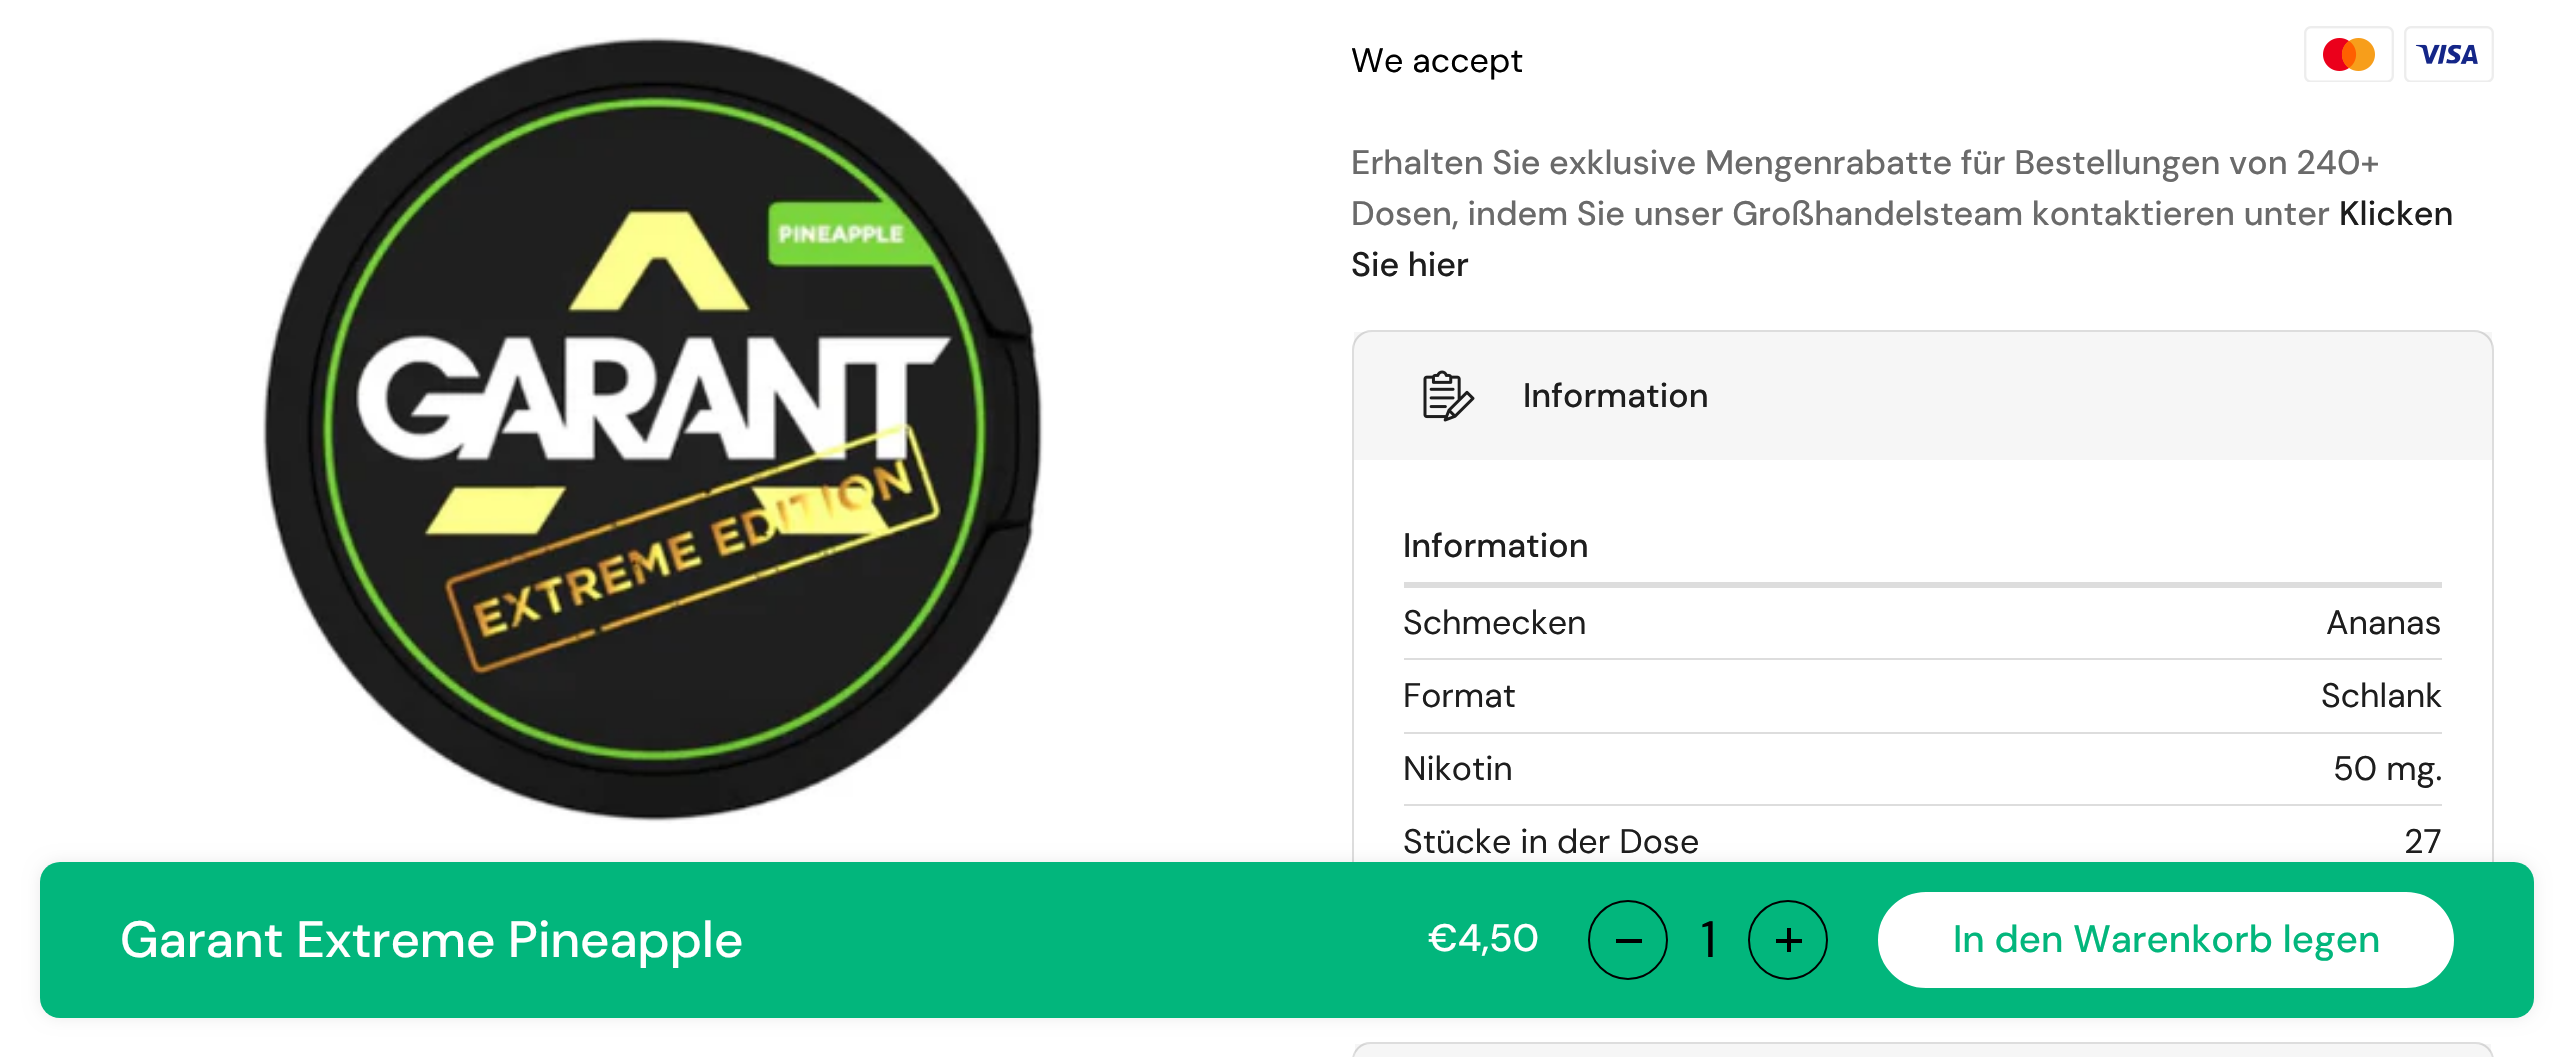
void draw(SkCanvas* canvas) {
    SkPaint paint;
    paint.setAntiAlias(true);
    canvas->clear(0xFFFFFFFF);
    canvas->drawImageRect(SkImages::DeferredFromEncodedData(SkData::MakeFromFileName("img1.png")), SkRect::MakeXYWH(262, 37, 782, 787), SkSamplingOptions());
    SkFont font1(fontMgr->matchFamilyStyle("DM Sans", SkFontStyle::Normal()), 34);
    font1.setSubpixel(true);
    paint.setColor(0xFF000000);
    canvas->drawString("We accept", 1351, 72, font1, paint);
    canvas->drawImageRect(SkImages::DeferredFromEncodedData(SkData::MakeFromFileName("img2.png")), SkRect::MakeXYWH(2304, 26, 90, 56), SkSamplingOptions());
    canvas->drawImageRect(SkImages::DeferredFromEncodedData(SkData::MakeFromFileName("img3.png")), SkRect::MakeXYWH(2404, 26, 90, 56), SkSamplingOptions());
    SkFont font2(fontMgr->matchFamilyStyle("DM Sans", SkFontStyle(500, SkFontStyle::kNormal_Width, SkFontStyle::kUpright_Slant)), 34);
    font2.setSubpixel(true);
    paint.setColor(0xFF6A6A6A);
    canvas->drawString("Erhalten Sie exklusive Mengenrabatte für Bestellungen von 240+", 1351, 174, font2, paint);
    canvas->drawString("Dosen, indem Sie unser Großhandelsteam kontaktieren unter", 1351, 225, font2, paint);
    paint.setColor(0xFF1D1D1D);
    canvas->drawString("Klicken", 2339, 225, font2, paint);
    canvas->drawString("Sie hier", 1351, 276, font2, paint);
    paint.setStyle(SkPaint::kStroke_Style);
    paint.setStrokeWidth(2);
    paint.setColor(0xFFDDDDDD);
    canvas->drawRoundRect(SkRect::MakeXYWH(1353, 331, 1140, 670), 19, 19, paint);
    paint.setStyle(SkPaint::kFill_Style);
    paint.setColor(0x0A1D1D1D);
    canvas->drawRect(SkRect::MakeXYWH(1354, 332, 1138, 128), paint);
    canvas->drawImageRect(SkImages::DeferredFromEncodedData(SkData::MakeFromFileName("img4.png")), SkRect::MakeXYWH(1423, 370, 52, 52), SkSamplingOptions());
    paint.setColor(0xFF1D1D1D);
    canvas->drawString("Information", 1523, 407, font2, paint);
    paint.setColor(0xFFDDDDDD);
    canvas->drawRect(SkRect::MakeXYWH(1404, 582, 1038, 6), paint);
    paint.setColor(0xFF1D1D1D);
    canvas->drawString("Information", 1403, 557, font2, paint);
    paint.setColor(0xFFDDDDDD);
    canvas->drawRect(SkRect::MakeXYWH(1404, 658, 1038, 2), paint);
    paint.setColor(0xFF1D1D1D);
    canvas->drawString("Schmecken", 1403, 634, font1, paint);
    canvas->drawString("Ananas", 2326, 634, font1, paint);
    paint.setColor(0xFFDDDDDD);
    canvas->drawRect(SkRect::MakeXYWH(1404, 732, 1038, 2), paint);
    paint.setColor(0xFF1D1D1D);
    canvas->drawString("Format", 1403, 707, font1, paint);
    canvas->drawString("Schlank", 2321, 707, font1, paint);
    paint.setColor(0xFFDDDDDD);
    canvas->drawRect(SkRect::MakeXYWH(1404, 804, 1038, 2), paint);
    paint.setColor(0xFF1D1D1D);
    canvas->drawString("Nikotin", 1403, 780, font1, paint);
    canvas->drawString("50 mg.", 2333, 780, font1, paint);
    canvas->drawString("Stücke in der Dose", 1403, 853, font1, paint);
    canvas->drawString("27", 2404, 853, font1, paint);
    paint.setStyle(SkPaint::kStroke_Style);
    paint.setColor(0xFFDDDDDD);
    canvas->drawRoundRect(SkRect::MakeXYWH(1353, 1043, 1140, 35), 19, 19, paint);
    paint.setStyle(SkPaint::kFill_Style);
    paint.setColor(0x0A1D1D1D);
    canvas->drawRect(SkRect::MakeXYWH(1355, 1044, 1136, 13), paint);
    paint.setColor(0x14000000);
    paint.setMaskFilter(SkMaskFilter::MakeBlur(kNormal_SkBlurStyle, 8));
    canvas->drawRoundRect(SkRect::MakeXYWH(40, 862, 2494, 156), 20, 20, paint);
    paint.setMaskFilter(nullptr);
    paint.setColor(0xFF02B67C);
    canvas->drawRoundRect(SkRect::MakeXYWH(40, 862, 2494, 156), 20, 20, paint);
    SkFont font3(fontMgr->matchFamilyStyle("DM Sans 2", SkFontStyle(500, SkFontStyle::kNormal_Width, SkFontStyle::kUpright_Slant)), 51);
    font3.setSubpixel(true);
    paint.setColor(0xFFFFFFFF);
    canvas->drawString("Garant Extreme Pineapple", 120, 957, font3, paint);
    SkFont font4(fontMgr->matchFamilyStyle("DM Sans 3", SkFontStyle(500, SkFontStyle::kNormal_Width, SkFontStyle::kUpright_Slant)), 38.25f);
    font4.setSubpixel(true);
    canvas->drawString("€4,50", 1428, 951, font4, paint);
    paint.setStyle(SkPaint::kStroke_Style);
    paint.setColor(0xFF000000);
    canvas->drawCircle(1628, 940, 39, paint);
    paint.setStyle(SkPaint::kFill_Style);
    canvas->drawRect(SkRect::MakeXYWH(1616, 939, 26, 4), paint);
    SkFont font5(fontMgr->matchFamilyStyle("DM Sans 2", SkFontStyle::Normal()), 51);
    font5.setSubpixel(true);
    canvas->drawString("1", 1701, 957, font5, paint);
    paint.setStyle(SkPaint::kStroke_Style);
    canvas->drawCircle(1788, 940, 39, paint);
    paint.setStyle(SkPaint::kFill_Style);
    canvas->drawRect(SkRect::MakeXYWH(1787, 928, 4, 24), paint);
    canvas->drawRect(SkRect::MakeXYWH(1776, 939, 26, 4), paint);
    paint.setColor(0xFFFFFFFF);
    canvas->drawRoundRect(SkRect::MakeXYWH(1879, 893, 574, 94), 47, 47, paint);
    paint.setStyle(SkPaint::kStroke_Style);
    canvas->drawRoundRect(SkRect::MakeXYWH(1879, 893, 574, 94), 47, 47, paint);
    paint.setStyle(SkPaint::kFill_Style);
    paint.setColor(0xFF02B67C);
    canvas->drawString("In den Warenkorb legen", 1953, 952, font4, paint);
}
